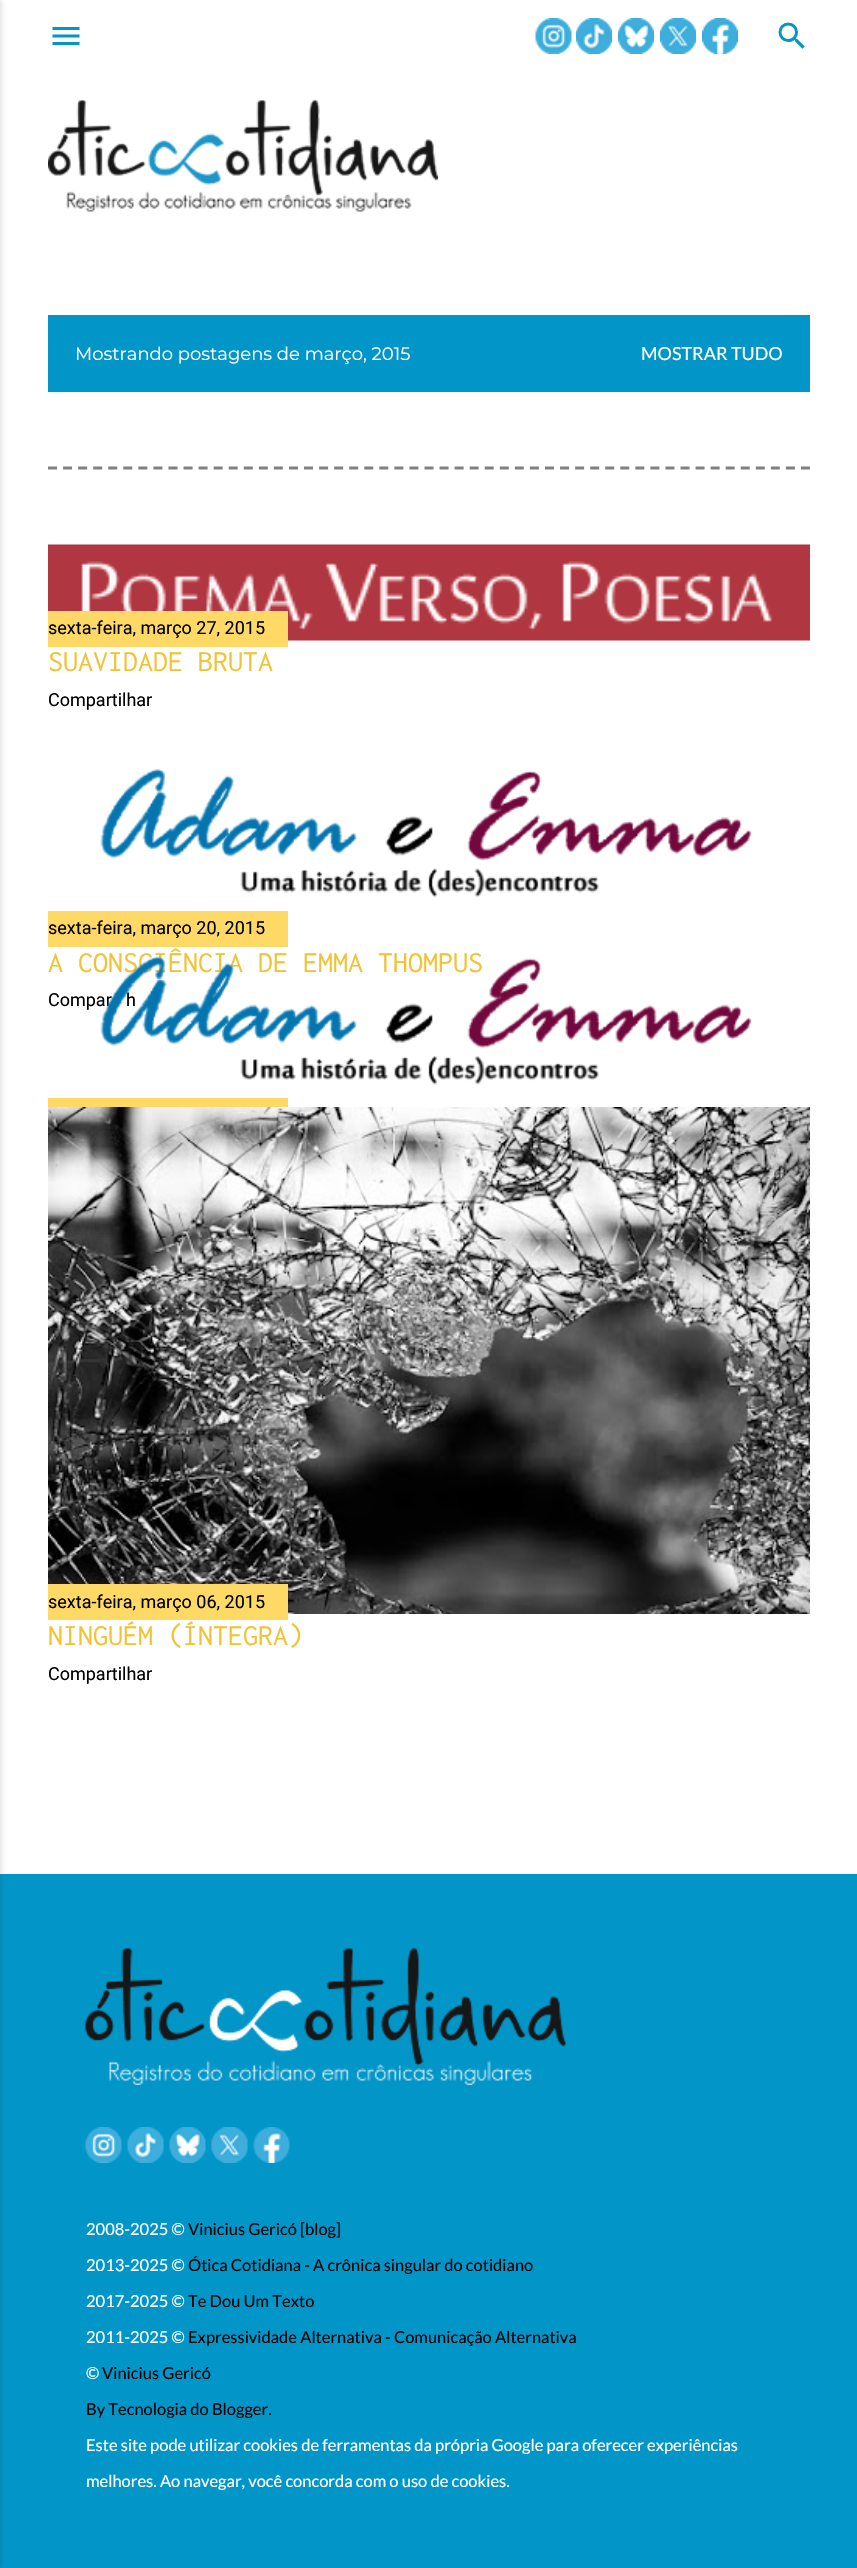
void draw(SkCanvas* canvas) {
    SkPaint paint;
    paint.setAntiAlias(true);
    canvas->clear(0xFFFFFFFF);
    paint.setColor(0xFF0296C8);
    canvas->drawRect(SkRect::MakeXYWH(0, 1874, 857, 694), paint);
    paint.setColor(0x1A000000);
    paint.setMaskFilter(SkMaskFilter::MakeBlur(kNormal_SkBlurStyle, 2));
    canvas->drawRect(SkRect::MakeXYWH(-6, 0, 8, 2568), paint);
    paint.setMaskFilter(nullptr);
    canvas->drawImageRect(SkImages::DeferredFromEncodedData(SkData::MakeFromFileName("img1.png")), SkRect::MakeXYWH(52, 27, 28, 18), SkSamplingOptions());
    canvas->drawImageRect(SkImages::DeferredFromEncodedData(SkData::MakeFromFileName("img2.png")), SkRect::MakeXYWH(535, 18, 37, 36), SkSamplingOptions());
    canvas->drawImageRect(SkImages::DeferredFromEncodedData(SkData::MakeFromFileName("img3.png")), SkRect::MakeXYWH(576, 18, 36, 36), SkSamplingOptions());
    canvas->drawImageRect(SkImages::DeferredFromEncodedData(SkData::MakeFromFileName("img4.png")), SkRect::MakeXYWH(618, 18, 36, 36), SkSamplingOptions());
    canvas->drawImageRect(SkImages::DeferredFromEncodedData(SkData::MakeFromFileName("img5.png")), SkRect::MakeXYWH(660, 18, 36, 36), SkSamplingOptions());
    canvas->drawImageRect(SkImages::DeferredFromEncodedData(SkData::MakeFromFileName("img6.png")), SkRect::MakeXYWH(702, 18, 36, 36), SkSamplingOptions());
    canvas->drawImageRect(SkImages::DeferredFromEncodedData(SkData::MakeFromFileName("img7.png")), SkRect::MakeXYWH(778, 22, 27, 27), SkSamplingOptions());
    canvas->drawImageRect(SkImages::DeferredFromEncodedData(SkData::MakeFromFileName("img8.png")), SkRect::MakeXYWH(48, 100, 390, 112), SkSamplingOptions());
    paint.setColor(0xFF0296C8);
    canvas->drawRect(SkRect::MakeXYWH(48, 315, 762, 77), paint);
    SkFont font1(fontMgr->matchFamilyStyle("Montserrat", SkFontStyle::Normal()), 18);
    font1.setSubpixel(true);
    paint.setColor(0xFFFFFFFF);
    canvas->drawString("Mostrando postagens de março, 2015", 75, 360, font1, paint);
    SkFont font2(fontMgr->matchFamilyStyle("Lato", SkFontStyle::Normal()), 18);
    font2.setSubpixel(true);
    canvas->drawString("MOSTRAR TUDO", 641, 360, font2, paint);
    paint.setStyle(SkPaint::kStroke_Style);
    paint.setStrokeWidth(3);
    paint.setColor(0xFF808080);
    paint.setPathEffect(SkDashPathEffect::Make({{9, 6.06f}}, 0));
    canvas->drawPath(SkPathBuilder().moveTo(48, 468).lineTo(810, 468).detach(), paint);
    paint.setPathEffect(nullptr);
    canvas->drawImageRect(SkImages::DeferredFromEncodedData(SkData::MakeFromFileName("img9.png")), SkRect::MakeXYWH(48, 544, 762, 97), SkSamplingOptions());
    paint.setStyle(SkPaint::kFill_Style);
    paint.setColor(0xFFFFD966);
    canvas->drawRect(SkRect::MakeXYWH(48, 611, 240, 36), paint);
    SkFont font3(fontMgr->matchFamilyStyle("Roboto", SkFontStyle::Normal()), 18);
    font3.setSubpixel(true);
    paint.setColor(0xFF000000);
    canvas->drawString("sexta-feira, março 27, 2015", 48, 634, font3, paint);
    SkFont font4(fontMgr->matchFamilyStyle("Inconsolata", SkFontStyle::Normal()), 30);
    font4.setSubpixel(true);
    paint.setColor(0xFFF1C334);
    canvas->drawString("SUAVIDADE BRUTA", 48, 671, font4, paint);
    paint.setColor(0xFF000000);
    canvas->drawString("Compartilhar", 48, 706, font3, paint);
    canvas->drawImageRect(SkImages::DeferredFromEncodedData(SkData::MakeFromFileName("img10.png")), SkRect::MakeXYWH(100, 769, 652, 129), SkSamplingOptions());
    paint.setColor(0xFFFFD966);
    canvas->drawRect(SkRect::MakeXYWH(48, 911, 240, 36), paint);
    paint.setColor(0xFF000000);
    canvas->drawString("sexta-feira, março 20, 2015", 48, 934, font3, paint);
    paint.setColor(0xFFF1C334);
    canvas->drawString("A CONSCIÊNCIA DE EMMA THOMPUS", 48, 972, font4, paint);
    paint.setColor(0xFF000000);
    canvas->drawString("Compar", 48, 1006, font3, paint);
    canvas->drawString("h", 126, 1006, font3, paint);
    canvas->drawImageRect(SkImages::DeferredFromEncodedData(SkData::MakeFromFileName("img11.png")), SkRect::MakeXYWH(100, 956, 652, 129), SkSamplingOptions());
    paint.setColor(0xFFFFD966);
    canvas->drawRect(SkRect::MakeXYWH(48, 1098, 240, 9), paint);
    canvas->drawImageRect(SkImages::DeferredFromEncodedData(SkData::MakeFromFileName("img12.png")), SkRect::MakeXYWH(48, 1107, 762, 507), SkSamplingOptions());
    canvas->drawRect(SkRect::MakeXYWH(48, 1584, 240, 36), paint);
    paint.setColor(0xFF000000);
    canvas->drawString("sexta-feira, março 06, 2015", 48, 1608, font3, paint);
    paint.setColor(0xFFF1C334);
    canvas->drawString("NINGUÉM (ÍNTEGRA)", 48, 1645, font4, paint);
    paint.setColor(0xFF000000);
    canvas->drawString("Compartilhar", 48, 1680, font3, paint);
    canvas->drawImageRect(SkImages::DeferredFromEncodedData(SkData::MakeFromFileName("img13.png")), SkRect::MakeXYWH(85, 1948, 481, 137), SkSamplingOptions());
    canvas->drawImageRect(SkImages::DeferredFromEncodedData(SkData::MakeFromFileName("img14.png")), SkRect::MakeXYWH(85, 2127, 37, 36), SkSamplingOptions());
    canvas->drawImageRect(SkImages::DeferredFromEncodedData(SkData::MakeFromFileName("img15.png")), SkRect::MakeXYWH(127, 2127, 37, 36), SkSamplingOptions());
    canvas->drawImageRect(SkImages::DeferredFromEncodedData(SkData::MakeFromFileName("img16.png")), SkRect::MakeXYWH(169, 2127, 37, 36), SkSamplingOptions());
    canvas->drawImageRect(SkImages::DeferredFromEncodedData(SkData::MakeFromFileName("img17.png")), SkRect::MakeXYWH(211, 2127, 37, 36), SkSamplingOptions());
    canvas->drawImageRect(SkImages::DeferredFromEncodedData(SkData::MakeFromFileName("img18.png")), SkRect::MakeXYWH(253, 2127, 37, 36), SkSamplingOptions());
    SkFont font5(fontMgr->matchFamilyStyle("Lato", SkFontStyle::Normal()), 16.5f);
    font5.setSubpixel(true);
    paint.setColor(0xFFFFFFFF);
    canvas->drawString("2008-2025 ©", 86, 2235, font5, paint);
    paint.setColor(0xFF000000);
    canvas->drawString("Vinicius Gericó [blog]", 188, 2235, font5, paint);
    paint.setColor(0xFFFFFFFF);
    canvas->drawString("2013-2025 ©", 86, 2271, font5, paint);
    paint.setColor(0xFF000000);
    canvas->drawString("Ótica Cotidiana - A crônica singular do cotidiano", 188, 2271, font5, paint);
    paint.setColor(0xFFFFFFFF);
    canvas->drawString("2017-2025 ©", 86, 2307, font5, paint);
    paint.setColor(0xFF000000);
    canvas->drawString("Te Dou Um Texto", 188, 2307, font5, paint);
    paint.setColor(0xFFFFFFFF);
    canvas->drawString("2011-2025 ©", 86, 2343, font5, paint);
    paint.setColor(0xFF000000);
    canvas->drawString("Expressividade Alternativa - Comunicação Alternativa", 188, 2343, font5, paint);
    paint.setColor(0xFFFFFFFF);
    canvas->drawString("©", 86, 2379, font5, paint);
    paint.setColor(0xFF000000);
    canvas->drawString("Vinicius Gericó", 102, 2379, font5, paint);
    canvas->drawString("By Tecnologia do Blogger.", 86, 2415, font5, paint);
    paint.setColor(0xFFFFFFFF);
    canvas->drawString("Este site pode utilizar cookies de ferramentas da própria Google para oferecer experiências", 86, 2451, font5, paint);
    canvas->drawString("melhores. Ao navegar, você concorda com o uso de cookies.", 86, 2487, font5, paint);
}
